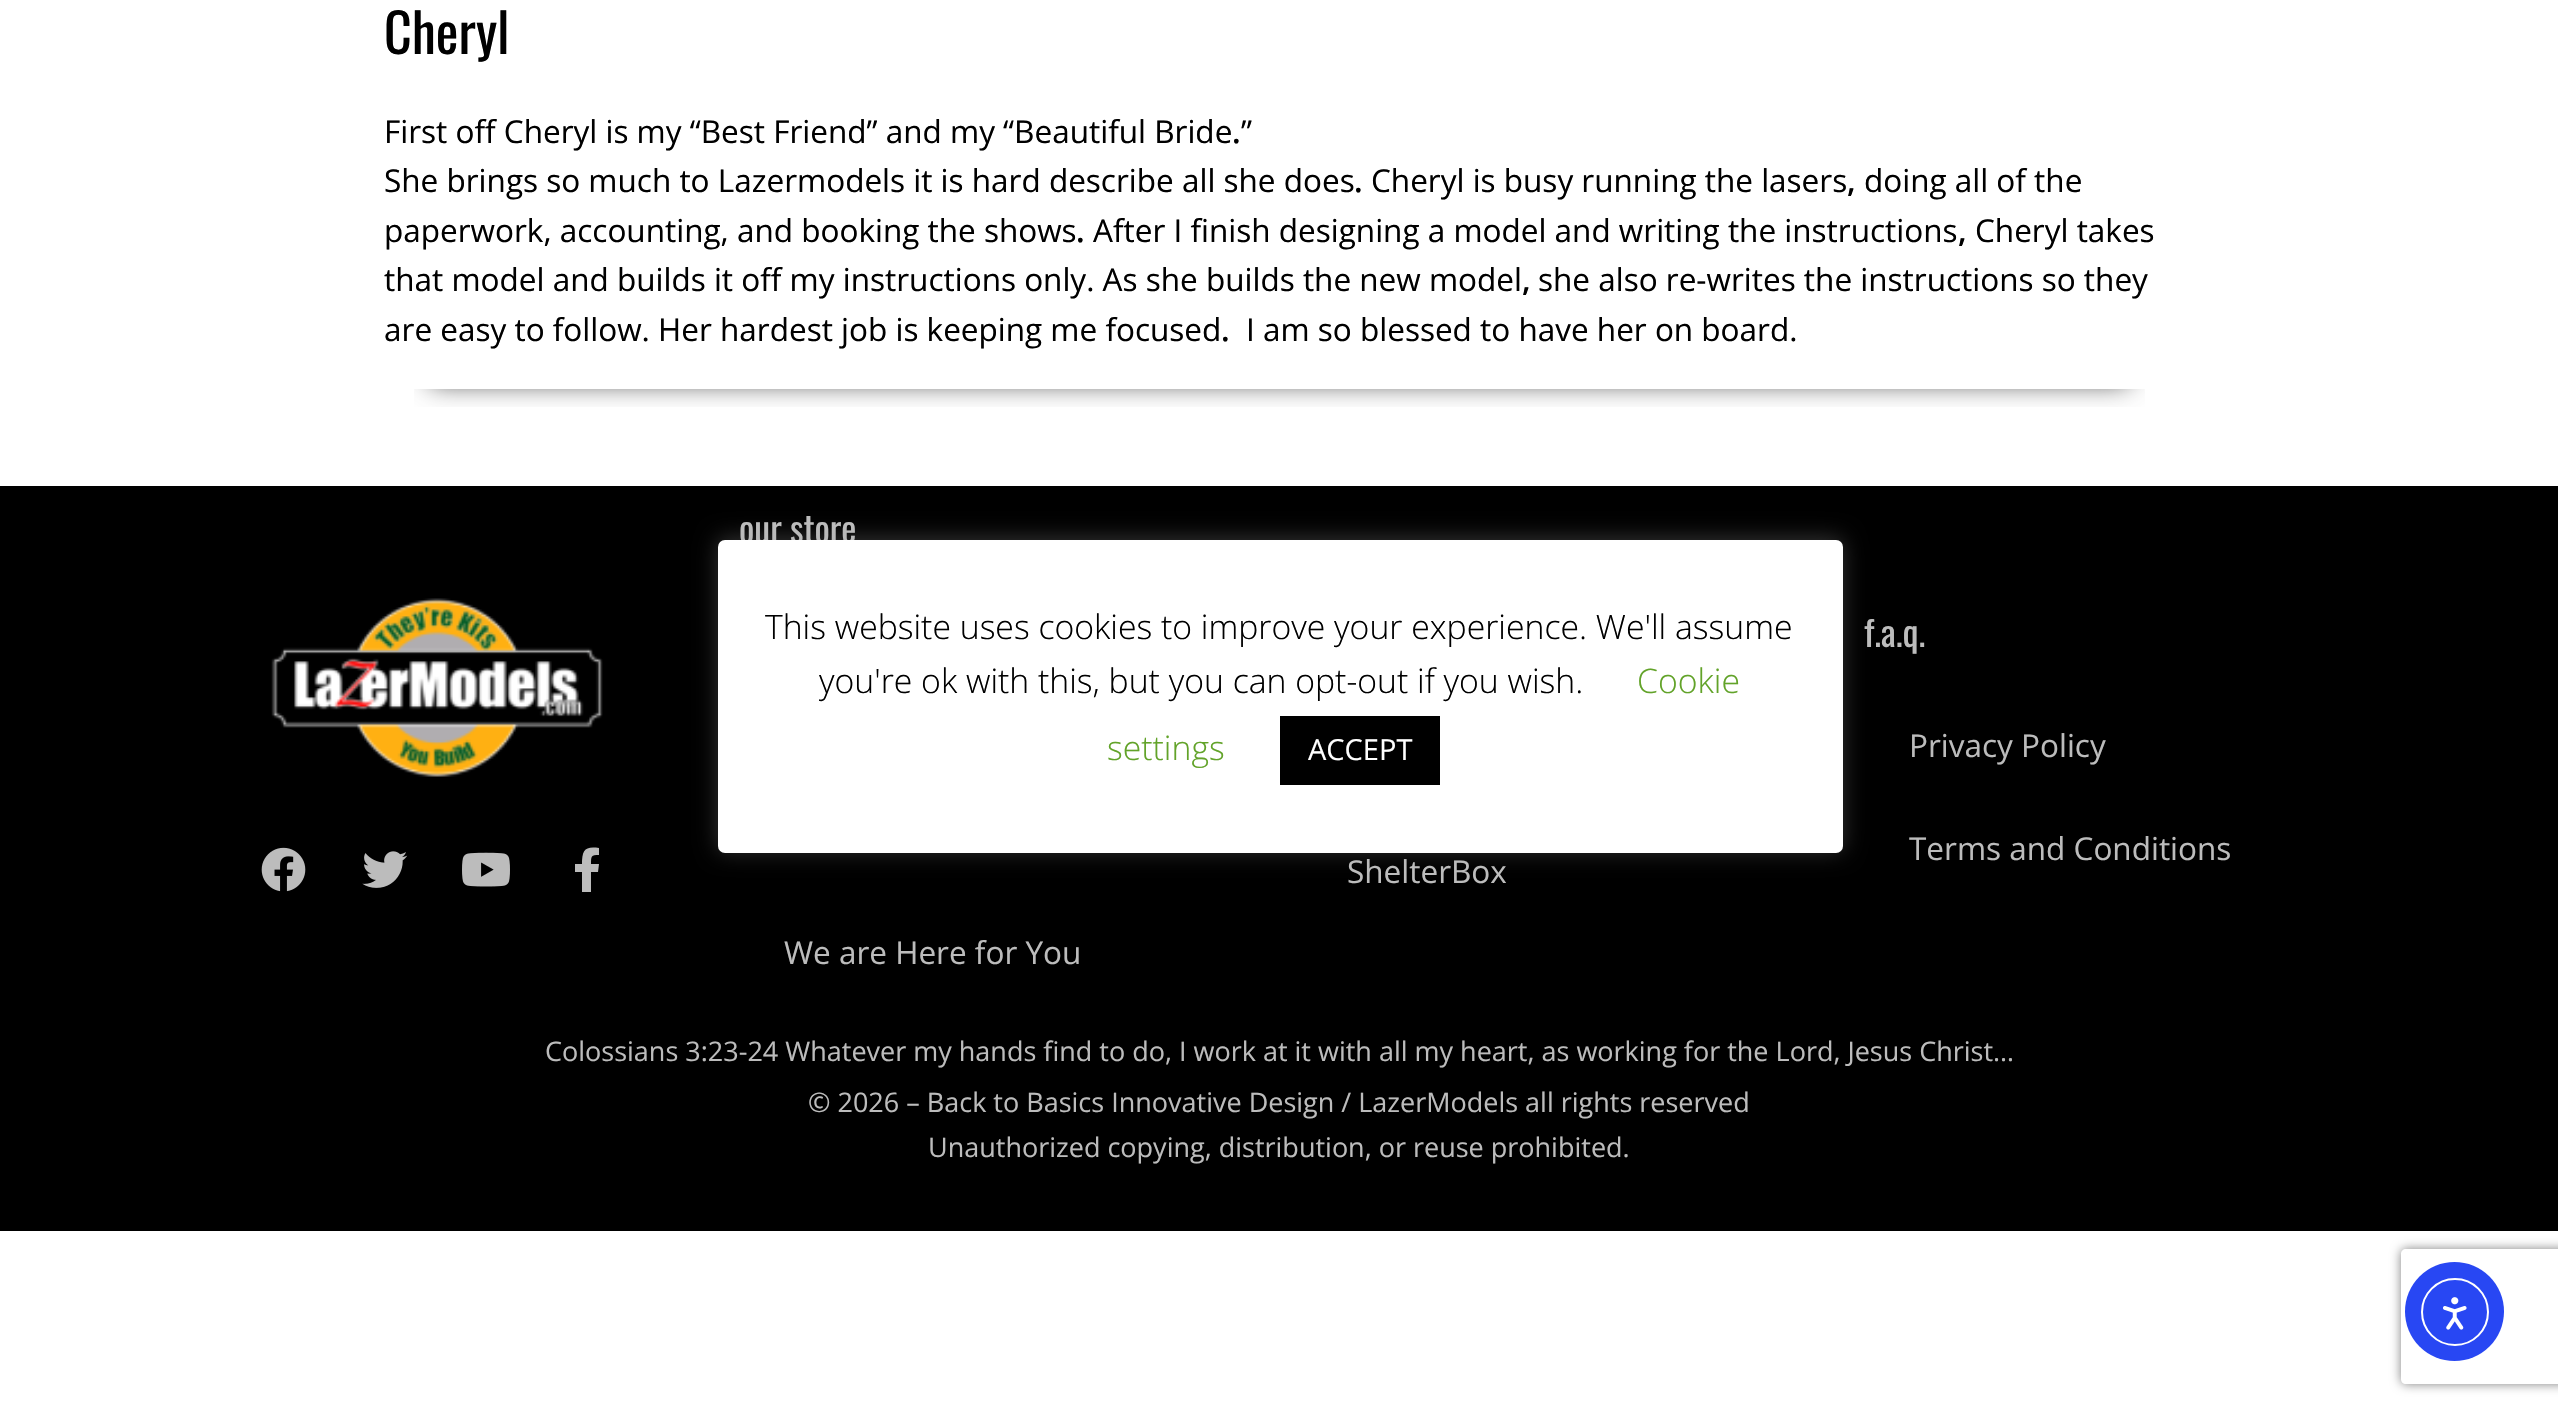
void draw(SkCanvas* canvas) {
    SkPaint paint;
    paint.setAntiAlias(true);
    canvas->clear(0xFFFFFFFF);
    canvas->save();
    canvas->clipRect(SkRect::MakeXYWH(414, 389, 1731, 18));
    paint.setColor(0xBF000000);
    paint.setMaskFilter(SkMaskFilter::MakeBlur(kNormal_SkBlurStyle, 12.5f));
    canvas->drawRect(SkRect::MakeXYWH(430, 83, 1699, 300), paint);
    paint.setMaskFilter(nullptr);
    canvas->restore();
    SkFont font1(fontMgr->matchFamilyStyle("Oswald", SkFontStyle::Normal()), 54);
    font1.setSubpixel(true);
    paint.setColor(0xFF000000);
    canvas->drawString("Cheryl", 384, 54, font1, paint);
    SkFont font2(fontMgr->matchFamilyStyle("Open Sans", SkFontStyle::Normal()), 31.5f);
    font2.setSubpixel(true);
    canvas->drawString("First off Cheryl is my “Best Friend” and my “Beautiful Bride", 384, 143, font2, paint);
    canvas->drawString("”", 1241, 143, font2, paint);
    SkFont font3(fontMgr->matchFamilyStyle("Open Sans", SkFontStyle(600, SkFontStyle::kNormal_Width, SkFontStyle::kUpright_Slant)), 31.5f);
    font3.setSubpixel(true);
    canvas->drawString(".", 1232, 143, font3, paint);
    canvas->drawString("She brings so much to Lazermodels it is hard describe all she does", 384, 192, font2, paint);
    canvas->drawString(".", 1354, 192, font3, paint);
    canvas->drawString("Cheryl is busy running the lasers", 1371, 192, font2, paint);
    canvas->drawString(",", 1847, 192, font3, paint);
    canvas->drawString("doing all of the", 1864, 192, font2, paint);
    canvas->drawString("paperwork, accounting, and booking the shows", 384, 242, font2, paint);
    canvas->drawString(".", 1076, 242, font3, paint);
    canvas->drawString("After I finish designing a model and writing the instructions", 1093, 242, font2, paint);
    canvas->drawString(",", 1958, 242, font3, paint);
    canvas->drawString("Cheryl takes", 1975, 242, font2, paint);
    canvas->drawString("that model and builds it off my instructions only. As she builds the new model", 384, 291, font2, paint);
    canvas->drawString(",", 1522, 291, font3, paint);
    canvas->drawString("she also re-writes the instructions so they", 1538, 291, font2, paint);
    canvas->drawString("are easy to follow. Her hardest job is keeping me focused", 384, 341, font2, paint);
    canvas->drawString(".", 1221, 341, font3, paint);
    canvas->drawString("I am so blessed to have her on board.", 1246, 341, font2, paint);
    canvas->drawRect(SkRect::MakeXYWH(0, 486, 2558, 745), paint);
    canvas->drawImageRect(SkImages::DeferredFromEncodedData(SkData::MakeFromFileName("img1.png")), SkRect::MakeXYWH(271, 598, 332, 179), SkSamplingOptions());
    canvas->drawImageRect(SkImages::DeferredFromEncodedData(SkData::MakeFromFileName("img2.png")), SkRect::MakeXYWH(261, 847, 45, 45), SkSamplingOptions());
    canvas->drawImageRect(SkImages::DeferredFromEncodedData(SkData::MakeFromFileName("img3.png")), SkRect::MakeXYWH(362, 851, 46, 37), SkSamplingOptions());
    canvas->drawImageRect(SkImages::DeferredFromEncodedData(SkData::MakeFromFileName("img4.png")), SkRect::MakeXYWH(462, 852, 48, 35), SkSamplingOptions());
    paint.setColor(0xFFBCBCBC);
    canvas->drawPath(SkPathBuilder().moveTo(598, 872).lineTo(591, 872).lineTo(591, 892).lineTo(582, 892).lineTo(582, 872).lineTo(575, 872).lineTo(575, 864).lineTo(582, 864).cubicTo(582, 850, 585, 846, 599, 848).lineTo(599, 855).cubicTo(591, 855, 591, 856, 591, 864).lineTo(599, 864).close().detach(), paint);
    SkFont font4(fontMgr->matchFamilyStyle("Oswald", SkFontStyle::Normal()), 36);
    font4.setSubpixel(true);
    canvas->drawString("our store", 739, 543, font4, paint);
    canvas->drawString("We are Here for You", 784, 964, font2, paint);
    canvas->drawString("f.a.q.", 1864, 647, font4, paint);
    canvas->drawString("Privacy Policy", 1909, 757, font2, paint);
    canvas->drawString("Terms and Conditions", 1909, 860, font2, paint);
    canvas->drawString("ShelterBox", 1347, 883, font2, paint);
    SkFont font5(fontMgr->matchFamilyStyle("Open Sans", SkFontStyle::Normal()), 27);
    font5.setSubpixel(true);
    canvas->drawString("Colossians 3:23-24 Whatever my hands find to do, I work at it with all my heart, as working for the Lord, Jesus Christ…", 545, 1061, font5, paint);
    canvas->drawString("© 2026 – Back to Basics Innovative Design / LazerModels all rights reserved", 808, 1112, font5, paint);
    canvas->drawString("Unauthorized copying, distribution, or reuse prohibited.", 928, 1157, font5, paint);
    paint.setColor(0x4DACABAB);
    paint.setMaskFilter(SkMaskFilter::MakeBlur(kNormal_SkBlurStyle, 11));
    canvas->drawRoundRect(SkRect::MakeXYWH(718, 538, 1125, 313), 7, 7, paint);
    paint.setMaskFilter(nullptr);
    paint.setColor(0xFFFFFFFF);
    canvas->drawRoundRect(SkRect::MakeXYWH(718, 540, 1125, 313), 7, 7, paint);
    SkFont font6(fontMgr->matchFamilyStyle("Open Sans", SkFontStyle(300, SkFontStyle::kNormal_Width, SkFontStyle::kUpright_Slant)), 33.75f);
    font6.setSubpixel(true);
    paint.setColor(0xFF000000);
    canvas->drawString("This website uses cookies to improve your experience. We'll assume", 765, 639, font6, paint);
    canvas->drawString("you're ok with this, but you can opt-out if you wish.", 819, 693, font6, paint);
    paint.setColor(0xFF62A329);
    canvas->drawString("Cookie", 1637, 693, font6, paint);
    canvas->drawString("settings", 1107, 760, font6, paint);
    paint.setColor(0xFF000000);
    canvas->drawRect(SkRect::MakeXYWH(1280, 716, 160, 69), paint);
    SkFont font7(fontMgr->matchFamilyStyle("Open Sans", SkFontStyle::Normal()), 29);
    font7.setSubpixel(true);
    paint.setColor(0xFFFFFFFF);
    canvas->drawString("ACCEPT", 1308, 760, font7, paint);
    canvas->save();
    canvas->clipPath(SkPathBuilder(SkPathFillType::kEvenOdd).moveTo(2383, 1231).lineTo(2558, 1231).lineTo(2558, 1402).lineTo(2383, 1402).close().moveTo(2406, 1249).lineTo(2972, 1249).cubicTo(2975, 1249, 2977, 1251, 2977, 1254).lineTo(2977, 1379).cubicTo(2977, 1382, 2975, 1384, 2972, 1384).lineTo(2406, 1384).cubicTo(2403, 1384, 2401, 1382, 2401, 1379).lineTo(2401, 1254).cubicTo(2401, 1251, 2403, 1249, 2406, 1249).close().detach(), true);
    paint.setColor(0xFF808080);
    paint.setMaskFilter(SkMaskFilter::MakeBlur(kNormal_SkBlurStyle, 5.5f));
    canvas->drawRoundRect(SkRect::MakeXYWH(2401, 1249, 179, 135), 5, 5, paint);
    paint.setMaskFilter(nullptr);
    canvas->restore();
    paint.setColor(0xFF2847F3);
    canvas->drawCircle(2454.5f, 1311.5f, 49.5f, paint);
    paint.setStyle(SkPaint::kStroke_Style);
    paint.setStrokeWidth(2);
    paint.setColor(0xFFFFFFFF);
    canvas->drawCircle(2455, 1312, 33, paint);
    canvas->drawImageRect(SkImages::DeferredFromEncodedData(SkData::MakeFromFileName("img5.png")), SkRect::MakeXYWH(2443, 1297, 24, 33), SkSamplingOptions());
}
